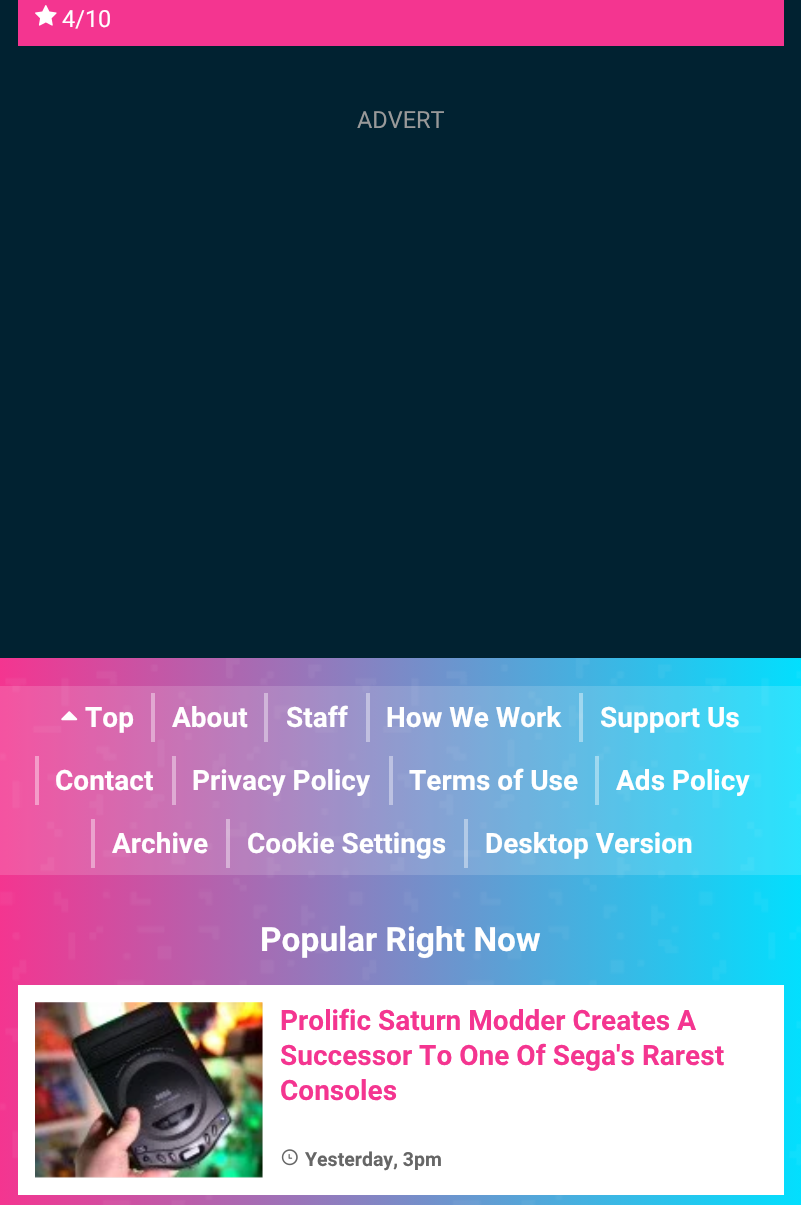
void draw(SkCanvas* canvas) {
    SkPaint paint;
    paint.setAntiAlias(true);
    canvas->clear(0xFFFFFFFF);
    paint.setColor(0xFF012231);
    canvas->drawRect(SkRect::MakeXYWH(0, 0, 801, 658), paint);
    paint.setColor(0xFFF43590);
    canvas->drawRect(SkRect::MakeXYWH(18, 0, 766, 46), paint);
    canvas->drawImageRect(SkImages::DeferredFromEncodedData(SkData::MakeFromFileName("img1.png")), SkRect::MakeXYWH(35, 5, 22, 21), SkSamplingOptions());
    SkFont font1(fontMgr->matchFamilyStyle("Roboto", SkFontStyle::Normal()), 23.5f);
    font1.setSubpixel(true);
    paint.setColor(0xFFFFFFFF);
    canvas->drawString("4/10", 62, 27, font1, paint);
    paint.setColor(0xFF999999);
    canvas->drawString("ADVERT", 357, 128, font1, paint);
    canvas->drawImageRect(SkImages::DeferredFromEncodedData(SkData::MakeFromFileName("img2.png")), SkRect::MakeXYWH(0, 658, 801, 547), SkSamplingOptions());
    paint.setColor(0x26FFFFFF);
    canvas->drawRect(SkRect::MakeXYWH(0, 686, 801, 189), paint);
    canvas->drawImageRect(SkImages::DeferredFromEncodedData(SkData::MakeFromFileName("img3.png")), SkRect::MakeXYWH(61, 711, 17, 10), SkSamplingOptions());
    SkFont font2(fontMgr->matchFamilyStyle("Roboto", SkFontStyle::Bold()), 28);
    font2.setSubpixel(true);
    paint.setColor(0xFFFFFFFF);
    canvas->drawString("Top", 85, 727, font2, paint);
    paint.setColor(0xFFE2A8D1);
    canvas->drawRect(SkRect::MakeXYWH(151, 693, 4, 49), paint);
    paint.setColor(0xFFFFFFFF);
    canvas->drawString("About", 172, 727, font2, paint);
    paint.setColor(0xFFD0B5D9);
    canvas->drawRect(SkRect::MakeXYWH(264, 693, 4, 49), paint);
    paint.setColor(0xFFFFFFFF);
    canvas->drawString("Staff", 286, 727, font2, paint);
    paint.setColor(0xFFC1C0E0);
    canvas->drawRect(SkRect::MakeXYWH(366, 693, 4, 49), paint);
    paint.setColor(0xFFFFFFFF);
    canvas->drawString("How We Work", 386, 727, font2, paint);
    paint.setColor(0x66FFFFFF);
    canvas->drawRect(SkRect::MakeXYWH(579, 693, 4, 49), paint);
    paint.setColor(0xFFFFFFFF);
    canvas->drawString("Support Us", 600, 727, font2, paint);
    paint.setColor(0xFFF49CC9);
    canvas->drawRect(SkRect::MakeXYWH(35, 756, 4, 49), paint);
    paint.setColor(0xFFFFFFFF);
    canvas->drawString("Contact", 55, 790, font2, paint);
    paint.setColor(0xFFDFABD3);
    canvas->drawRect(SkRect::MakeXYWH(172, 756, 4, 49), paint);
    paint.setColor(0xFFFFFFFF);
    canvas->drawString("Privacy Policy", 192, 790, font2, paint);
    paint.setColor(0xFFBDC2E2);
    canvas->drawRect(SkRect::MakeXYWH(389, 756, 4, 49), paint);
    paint.setColor(0xFFFFFFFF);
    canvas->drawString("Terms of Use", 409, 790, font2, paint);
    paint.setColor(0x66FFFFFF);
    canvas->drawRect(SkRect::MakeXYWH(595, 756, 4, 49), paint);
    paint.setColor(0xFFFFFFFF);
    canvas->drawString("Ads Policy", 616, 790, font2, paint);
    paint.setColor(0xFFEBA2CD);
    canvas->drawRect(SkRect::MakeXYWH(91, 819, 4, 49), paint);
    paint.setColor(0xFFFFFFFF);
    canvas->drawString("Archive", 112, 853, font2, paint);
    paint.setColor(0x66FFFFFF);
    canvas->drawRect(SkRect::MakeXYWH(226, 819, 4, 49), paint);
    paint.setColor(0xFFFFFFFF);
    canvas->drawString("Cookie Settings", 247, 853, font2, paint);
    paint.setColor(0x66FFFFFF);
    canvas->drawRect(SkRect::MakeXYWH(464, 819, 4, 49), paint);
    paint.setColor(0xFFFFFFFF);
    canvas->drawString("Desktop Version", 485, 853, font2, paint);
    SkFont font3(fontMgr->matchFamilyStyle("Roboto", SkFontStyle::Bold()), 33.5f);
    font3.setSubpixel(true);
    canvas->drawString("Popular Right Now", 260, 951, font3, paint);
    canvas->drawRect(SkRect::MakeXYWH(18, 985, 766, 210), paint);
    paint.setColor(0xFFEEEEEE);
    canvas->drawRect(SkRect::MakeXYWH(35, 1003, 228, 175), paint);
    canvas->drawImageRect(SkImages::DeferredFromEncodedData(SkData::MakeFromFileName("img4.png")), SkRect::MakeXYWH(35, 1002, 228, 176), SkSamplingOptions());
    paint.setColor(0xFFF43590);
    canvas->drawString("Prolific Saturn Modder Creates A", 280, 1030, font2, paint);
    canvas->drawString("Successor To One Of Sega's Rarest", 280, 1065, font2, paint);
    canvas->drawString("Consoles", 280, 1100, font2, paint);
    canvas->drawImageRect(SkImages::DeferredFromEncodedData(SkData::MakeFromFileName("img5.png")), SkRect::MakeXYWH(281, 1149, 17, 17), SkSamplingOptions());
    SkFont font4(fontMgr->matchFamilyStyle("Roboto", SkFontStyle::Bold()), 19.5f);
    font4.setSubpixel(true);
    paint.setColor(0xFF666666);
    canvas->drawString("Yesterday, 3pm", 305, 1166, font4, paint);
}
